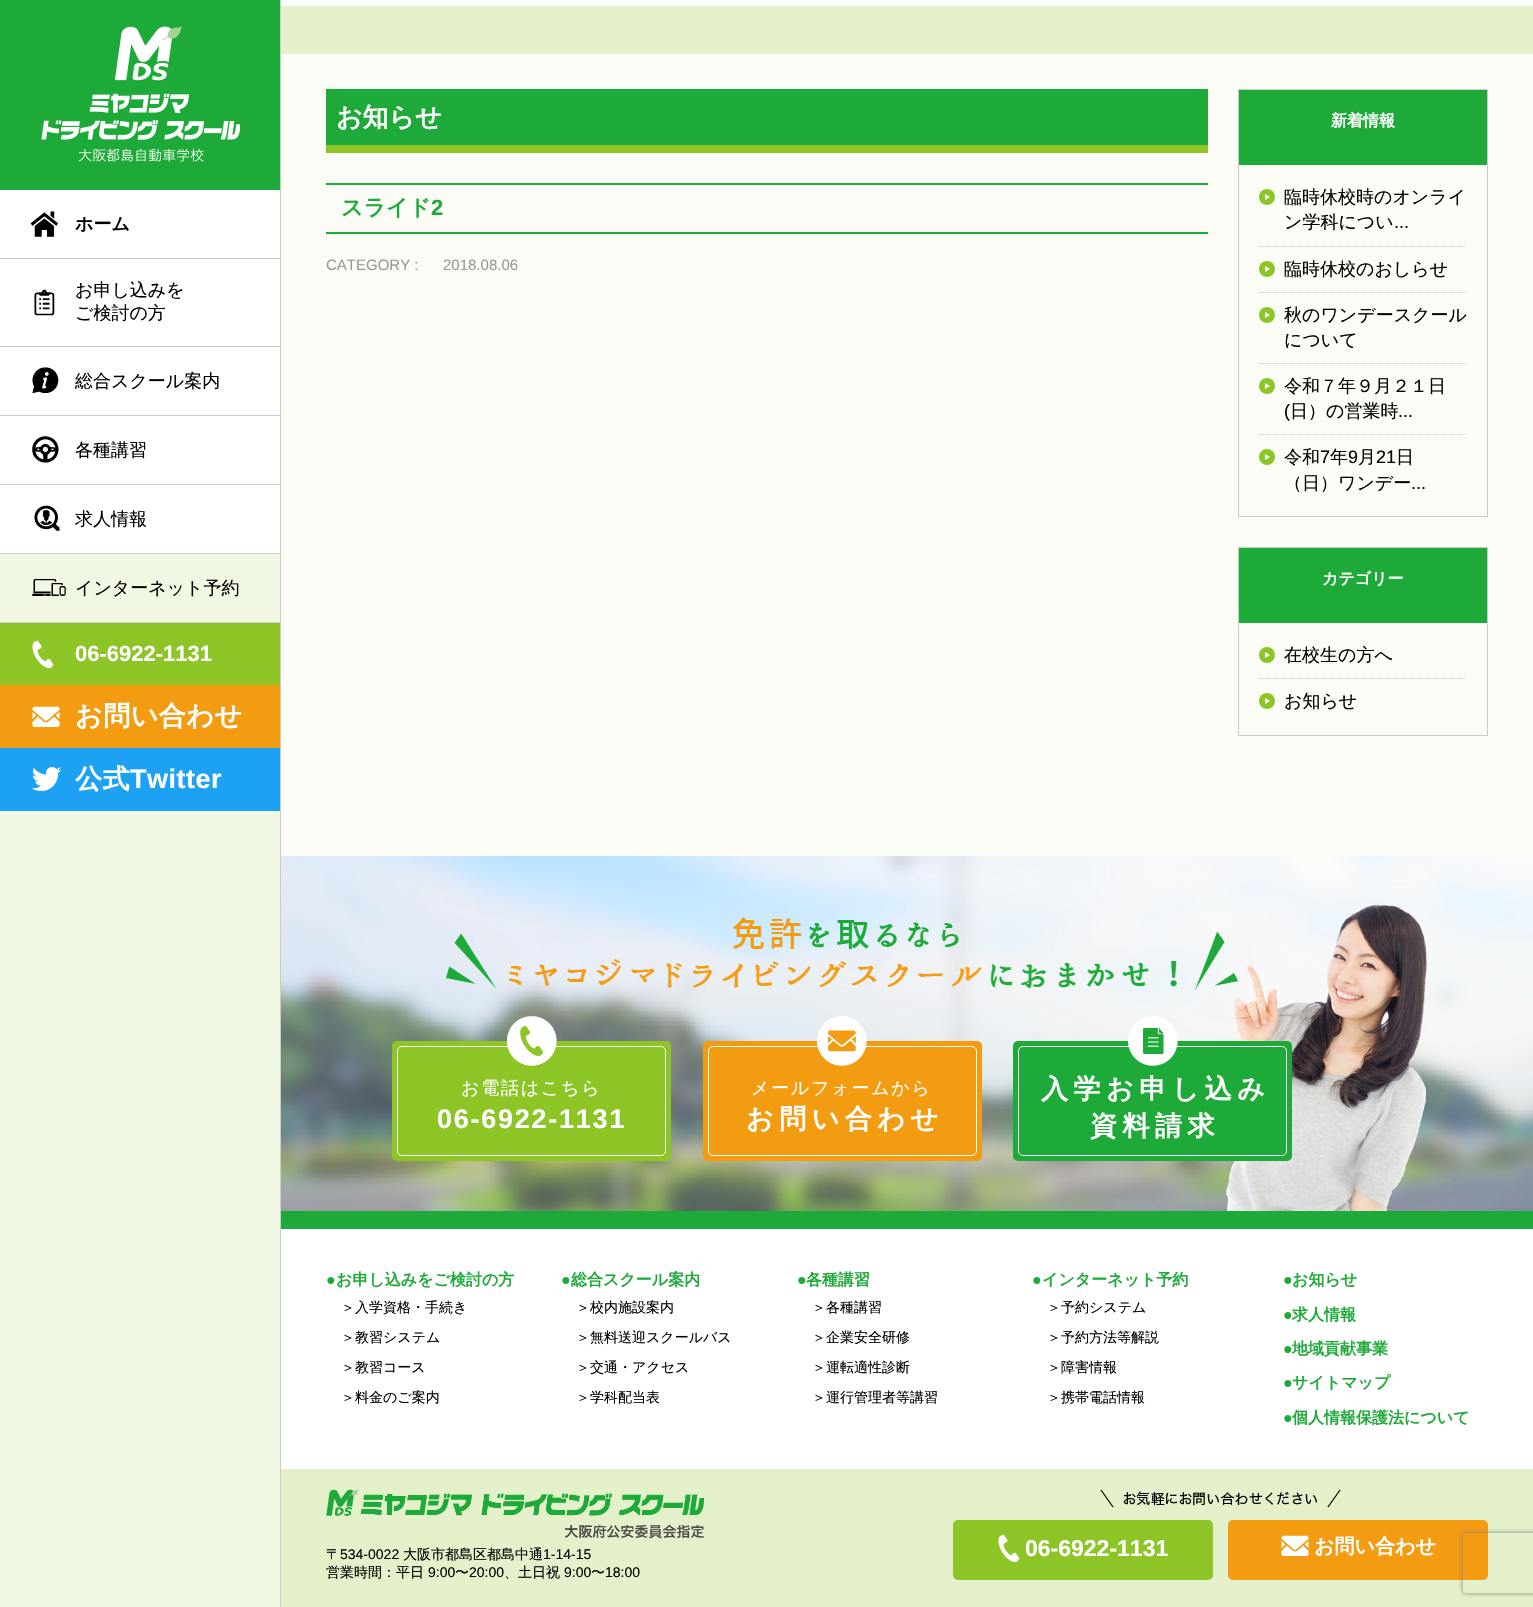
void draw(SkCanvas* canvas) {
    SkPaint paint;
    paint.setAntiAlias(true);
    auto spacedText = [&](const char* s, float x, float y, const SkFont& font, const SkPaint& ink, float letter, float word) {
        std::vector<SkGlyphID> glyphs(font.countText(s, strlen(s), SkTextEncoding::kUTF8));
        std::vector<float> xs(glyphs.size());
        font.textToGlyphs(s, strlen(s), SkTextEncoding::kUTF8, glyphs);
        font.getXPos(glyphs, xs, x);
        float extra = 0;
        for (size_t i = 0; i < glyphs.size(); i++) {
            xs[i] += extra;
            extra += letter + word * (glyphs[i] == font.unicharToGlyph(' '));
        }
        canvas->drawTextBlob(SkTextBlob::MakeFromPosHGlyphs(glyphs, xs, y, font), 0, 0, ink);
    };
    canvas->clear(0xFFF0F7E2);
    paint.setColor(0xFF1EAA39);
    canvas->drawRect(SkRect::MakeXYWH(0, 0, 280, 190), paint);
    canvas->drawImageRect(SkImages::DeferredFromEncodedData(SkData::MakeFromFileName("img1.png")), SkRect::MakeXYWH(41, 25, 199, 137), SkSamplingOptions());
    paint.setColor(0xFFFFFFFF);
    canvas->drawRect(SkRect::MakeXYWH(0, 190, 280, 363), paint);
    paint.setColor(0xFFCCCCCC);
    canvas->drawRect(SkRect::MakeXYWH(0, 258, 280, 1), paint);
    canvas->drawImageRect(SkImages::DeferredFromEncodedData(SkData::MakeFromFileName("img2.png")), SkRect::MakeXYWH(30, 211, 28, 26), SkSamplingOptions());
    SkFont font1(fontMgr->matchFamilyStyle("WenQuanYi Zen Hei", SkFontStyle::Bold()), 18);
    font1.setSubpixel(true);
    paint.setColor(0xFF000000);
    canvas->drawString("ホーム", 75, 230, font1, paint);
    paint.setColor(0xFFCCCCCC);
    canvas->drawRect(SkRect::MakeXYWH(0, 346, 280, 1), paint);
    canvas->drawImageRect(SkImages::DeferredFromEncodedData(SkData::MakeFromFileName("img3.png")), SkRect::MakeXYWH(34, 289, 21, 27), SkSamplingOptions());
    SkFont font2(fontMgr->matchFamilyStyle("WenQuanYi Zen Hei", SkFontStyle(500, SkFontStyle::kNormal_Width, SkFontStyle::kUpright_Slant)), 18);
    font2.setSubpixel(true);
    paint.setColor(0xFF000000);
    canvas->drawString("お申し込みを", 75, 296, font2, paint);
    canvas->drawString("ご検討の方", 75, 319, font2, paint);
    paint.setColor(0xFFCCCCCC);
    canvas->drawRect(SkRect::MakeXYWH(0, 415, 280, 1), paint);
    canvas->drawImageRect(SkImages::DeferredFromEncodedData(SkData::MakeFromFileName("img4.png")), SkRect::MakeXYWH(32, 367, 27, 27), SkSamplingOptions());
    paint.setColor(0xFF000000);
    canvas->drawString("総合スクール案内", 75, 387, font2, paint);
    paint.setColor(0xFFCCCCCC);
    canvas->drawRect(SkRect::MakeXYWH(0, 484, 280, 1), paint);
    canvas->drawImageRect(SkImages::DeferredFromEncodedData(SkData::MakeFromFileName("img5.png")), SkRect::MakeXYWH(32, 436, 27, 27), SkSamplingOptions());
    paint.setColor(0xFF000000);
    canvas->drawString("各種講習", 75, 456, font2, paint);
    paint.setColor(0xFFCCCCCC);
    canvas->drawRect(SkRect::MakeXYWH(0, 553, 280, 1), paint);
    canvas->drawImageRect(SkImages::DeferredFromEncodedData(SkData::MakeFromFileName("img6.png")), SkRect::MakeXYWH(34, 505, 26, 26), SkSamplingOptions());
    paint.setColor(0xFF000000);
    canvas->drawString("求人情報", 75, 525, font2, paint);
    paint.setColor(0xFFCCCCCC);
    canvas->drawRect(SkRect::MakeXYWH(0, 622, 280, 1), paint);
    canvas->drawImageRect(SkImages::DeferredFromEncodedData(SkData::MakeFromFileName("img7.png")), SkRect::MakeXYWH(32, 579, 34, 17), SkSamplingOptions());
    paint.setColor(0xFF000000);
    canvas->drawString("インターネット予約", 75, 594, font2, paint);
    paint.setColor(0xFF8DC526);
    canvas->drawRect(SkRect::MakeXYWH(0, 623, 280, 62), paint);
    canvas->drawImageRect(SkImages::DeferredFromEncodedData(SkData::MakeFromFileName("img8.png")), SkRect::MakeXYWH(32, 640, 22, 28), SkSamplingOptions());
    SkFont font3(fontMgr->matchFamilyStyle("Liberation Sans", SkFontStyle::Bold()), 22);
    font3.setSubpixel(true);
    paint.setColor(0xFFFFFFFF);
    canvas->drawString("06-6922-1131", 75, 661, font3, paint);
    paint.setColor(0xFFF39C12);
    canvas->drawRect(SkRect::MakeXYWH(0, 685, 280, 63), paint);
    canvas->drawImageRect(SkImages::DeferredFromEncodedData(SkData::MakeFromFileName("img9.png")), SkRect::MakeXYWH(32, 706, 28, 21), SkSamplingOptions());
    SkFont font4(fontMgr->matchFamilyStyle("WenQuanYi Zen Hei", SkFontStyle::Bold()), 27);
    font4.setSubpixel(true);
    paint.setColor(0xFFFFFFFF);
    spacedText("お問い合わせ", 75, 725, font4, paint, 0.5f, 0);
    paint.setColor(0xFF1DA1F2);
    canvas->drawRect(SkRect::MakeXYWH(0, 748, 280, 63), paint);
    canvas->drawImageRect(SkImages::DeferredFromEncodedData(SkData::MakeFromFileName("img10.png")), SkRect::MakeXYWH(32, 767, 29, 24), SkSamplingOptions());
    paint.setColor(0xFFFFFFFF);
    spacedText("公式", 75, 788, font4, paint, 0.5f, 0);
    SkFont font5(fontMgr->matchFamilyStyle("Liberation Sans", SkFontStyle::Bold()), 27);
    font5.setSubpixel(true);
    spacedText("Twitter", 130, 788, font5, paint, 0.5f, 0);
    canvas->drawRect(SkRect::MakeXYWH(281, 856, 1252, 613), paint);
    paint.setColor(0xFFFAFCF5);
    canvas->drawRect(SkRect::MakeXYWH(281, 0, 1252, 856), paint);
    paint.setColor(0xFFCCCCCC);
    canvas->drawRect(SkRect::MakeXYWH(280, 0, 1, 1607), paint);
    paint.setColor(0xFFE3F0C9);
    canvas->drawRect(SkRect::MakeXYWH(281, 6, 1252, 48), paint);
    paint.setColor(0xFF1EAA39);
    canvas->drawRect(SkRect::MakeXYWH(326, 89, 882, 56), paint);
    paint.setColor(0xFF8DC526);
    canvas->drawRect(SkRect::MakeXYWH(326, 145, 882, 8), paint);
    SkFont font6(fontMgr->matchFamilyStyle("WenQuanYi Zen Hei", SkFontStyle::Bold()), 26);
    font6.setSubpixel(true);
    paint.setColor(0xFFFFFFFF);
    canvas->drawString("お知らせ", 336, 126, font6, paint);
    paint.setColor(0xFF1EAA39);
    canvas->drawRect(SkRect::MakeXYWH(326, 183, 882, 2), paint);
    canvas->drawRect(SkRect::MakeXYWH(326, 232, 882, 2), paint);
    SkFont font7(fontMgr->matchFamilyStyle("WenQuanYi Zen Hei", SkFontStyle::Bold()), 22);
    font7.setSubpixel(true);
    canvas->drawString("スライド", 341, 215, font7, paint);
    canvas->drawString("2", 431, 215, font3, paint);
    SkFont font8(fontMgr->matchFamilyStyle("Liberation Sans", SkFontStyle::Normal()), 15);
    font8.setSubpixel(true);
    paint.setColor(0xFF989898);
    canvas->drawString("CATEGORY :", 326, 270, font8, paint);
    canvas->drawString("2018.08.06", 443, 270, font8, paint);
    paint.setStyle(SkPaint::kStroke_Style);
    paint.setStrokeWidth(1);
    paint.setColor(0xFFCBCBCB);
    canvas->drawRect(SkRect::MakeXYWH(1238.5f, 89.5f, 249, 427), paint);
    paint.setStyle(SkPaint::kFill_Style);
    paint.setColor(0xFF1EAA39);
    canvas->drawRect(SkRect::MakeXYWH(1239, 90, 248, 75), paint);
    SkFont font9(fontMgr->matchFamilyStyle("WenQuanYi Zen Hei", SkFontStyle::Bold()), 16);
    font9.setSubpixel(true);
    paint.setColor(0xFFFFFFFF);
    canvas->drawString("新着情報", 1331, 126, font9, paint);
    paint.setStyle(SkPaint::kStroke_Style);
    paint.setColor(0xFFCBCBCB);
    paint.setPathEffect(SkDashPathEffect::Make({{1, 1}}, 0));
    canvas->drawPath(SkPathBuilder().moveTo(1259, 246.5f).lineTo(1467, 246.5f).detach(), paint);
    paint.setPathEffect(nullptr);
    paint.setStyle(SkPaint::kFill_Style);
    paint.setColor(0xFF8DC526);
    canvas->drawCircle(1267, 197, 8, paint);
    paint.setColor(0xFF000000);
    canvas->drawString("臨時休校時のオンライ", 1284, 203, font2, paint);
    paint.setColor(0xFFFFFFFF);
    canvas->drawPath(SkPathBuilder().moveTo(1265, 200).lineTo(1265, 194).lineTo(1270, 197).close().detach(), paint);
    paint.setColor(0xFF000000);
    canvas->drawString("ン学科につい", 1284, 228, font2, paint);
    SkFont font10(fontMgr->matchFamilyStyle("Liberation Sans", SkFontStyle::Normal()), 18);
    font10.setSubpixel(true);
    canvas->drawString("...", 1394, 228, font10, paint);
    paint.setStyle(SkPaint::kStroke_Style);
    paint.setColor(0xFFCBCBCB);
    paint.setPathEffect(SkDashPathEffect::Make({{1, 1}}, 0));
    canvas->drawPath(SkPathBuilder().moveTo(1259, 292.5f).lineTo(1467, 292.5f).detach(), paint);
    paint.setPathEffect(nullptr);
    paint.setStyle(SkPaint::kFill_Style);
    paint.setColor(0xFF8DC526);
    canvas->drawCircle(1267, 269, 8, paint);
    paint.setColor(0xFF000000);
    canvas->drawString("臨時休校のおしらせ", 1284, 275, font2, paint);
    paint.setColor(0xFFFFFFFF);
    canvas->drawPath(SkPathBuilder().moveTo(1265, 272).lineTo(1265, 266).lineTo(1270, 269).close().detach(), paint);
    paint.setStyle(SkPaint::kStroke_Style);
    paint.setColor(0xFFCBCBCB);
    paint.setPathEffect(SkDashPathEffect::Make({{1, 1}}, 0));
    canvas->drawPath(SkPathBuilder().moveTo(1259, 363.5f).lineTo(1467, 363.5f).detach(), paint);
    paint.setPathEffect(nullptr);
    paint.setStyle(SkPaint::kFill_Style);
    paint.setColor(0xFF8DC526);
    canvas->drawCircle(1267, 315, 8, paint);
    paint.setColor(0xFF000000);
    canvas->drawString("秋のワンデースクール", 1284, 321, font2, paint);
    paint.setColor(0xFFFFFFFF);
    canvas->drawPath(SkPathBuilder().moveTo(1265, 318).lineTo(1265, 312).lineTo(1270, 315).close().detach(), paint);
    paint.setColor(0xFF000000);
    canvas->drawString("について", 1284, 346, font2, paint);
    paint.setStyle(SkPaint::kStroke_Style);
    paint.setColor(0xFFCBCBCB);
    paint.setPathEffect(SkDashPathEffect::Make({{1, 1}}, 0));
    canvas->drawPath(SkPathBuilder().moveTo(1259, 434.5f).lineTo(1467, 434.5f).detach(), paint);
    paint.setPathEffect(nullptr);
    paint.setStyle(SkPaint::kFill_Style);
    paint.setColor(0xFF8DC526);
    canvas->drawCircle(1267, 386, 8, paint);
    paint.setColor(0xFF000000);
    canvas->drawString("令和７年９月２１日", 1284, 392, font2, paint);
    paint.setColor(0xFFFFFFFF);
    canvas->drawPath(SkPathBuilder().moveTo(1265, 389).lineTo(1265, 383).lineTo(1270, 386).close().detach(), paint);
    paint.setColor(0xFF000000);
    canvas->drawString("(", 1284, 417, font10, paint);
    canvas->drawString("日）の営業時", 1290, 417, font2, paint);
    canvas->drawString("...", 1398, 417, font10, paint);
    paint.setColor(0xFF8DC526);
    canvas->drawCircle(1267, 457, 8, paint);
    paint.setColor(0xFF000000);
    canvas->drawString("令和", 1284, 463, font2, paint);
    canvas->drawString("7", 1320, 463, font10, paint);
    canvas->drawString("年", 1330, 463, font2, paint);
    canvas->drawString("9", 1348, 463, font10, paint);
    canvas->drawString("月", 1358, 463, font2, paint);
    canvas->drawString("21", 1376, 463, font10, paint);
    canvas->drawString("日", 1396, 463, font2, paint);
    paint.setColor(0xFFFFFFFF);
    canvas->drawPath(SkPathBuilder().moveTo(1265, 460).lineTo(1265, 454).lineTo(1270, 457).close().detach(), paint);
    paint.setColor(0xFF000000);
    canvas->drawString("（日）ワンデー", 1284, 489, font2, paint);
    canvas->drawString("...", 1411, 489, font10, paint);
    paint.setStyle(SkPaint::kStroke_Style);
    paint.setColor(0xFFCBCBCB);
    canvas->drawRect(SkRect::MakeXYWH(1238.5f, 547.5f, 249, 188), paint);
    paint.setStyle(SkPaint::kFill_Style);
    paint.setColor(0xFF1EAA39);
    canvas->drawRect(SkRect::MakeXYWH(1239, 548, 248, 75), paint);
    paint.setColor(0xFFFFFFFF);
    canvas->drawString("カテゴリー", 1322, 584, font9, paint);
    paint.setStyle(SkPaint::kStroke_Style);
    paint.setColor(0xFFCBCBCB);
    paint.setPathEffect(SkDashPathEffect::Make({{1, 1}}, 0));
    canvas->drawPath(SkPathBuilder().moveTo(1259, 678.5f).lineTo(1467, 678.5f).detach(), paint);
    paint.setPathEffect(nullptr);
    paint.setStyle(SkPaint::kFill_Style);
    paint.setColor(0xFF8DC526);
    canvas->drawCircle(1267, 655, 8, paint);
    paint.setColor(0xFF000000);
    canvas->drawString("在校生の方へ", 1284, 661, font2, paint);
    paint.setColor(0xFFFFFFFF);
    canvas->drawPath(SkPathBuilder().moveTo(1265, 658).lineTo(1265, 652).lineTo(1270, 655).close().detach(), paint);
    paint.setColor(0xFF8DC526);
    canvas->drawCircle(1267, 701, 8, paint);
    paint.setColor(0xFF000000);
    canvas->drawString("お知らせ", 1284, 707, font2, paint);
    paint.setColor(0xFFFFFFFF);
    canvas->drawPath(SkPathBuilder().moveTo(1265, 704).lineTo(1265, 698).lineTo(1270, 701).close().detach(), paint);
    canvas->drawImageRect(SkImages::DeferredFromEncodedData(SkData::MakeFromFileName("img11.png")), SkRect::MakeXYWH(281, 856, 1252, 355), SkSamplingOptions());
    paint.setColor(0xFF1EAA39);
    canvas->drawRect(SkRect::MakeXYWH(281, 1211, 1252, 18), paint);
    canvas->drawImageRect(SkImages::DeferredFromEncodedData(SkData::MakeFromFileName("img13.png")), SkRect::MakeXYWH(1226, 904, 201, 307), SkSamplingOptions());
    canvas->drawImageRect(SkImages::DeferredFromEncodedData(SkData::MakeFromFileName("img12.png")), SkRect::MakeXYWH(446, 917, 792, 74), SkSamplingOptions());
    paint.setColor(0xFF8DC526);
    canvas->drawRoundRect(SkRect::MakeXYWH(392, 1041, 279, 120), 5, 5, paint);
    paint.setStyle(SkPaint::kStroke_Style);
    paint.setColor(0xFFFFFFFF);
    canvas->drawRoundRect(SkRect::MakeXYWH(397.5f, 1046.5f, 268, 109), 4.5f, 4.5f, paint);
    canvas->drawImageRect(SkImages::DeferredFromEncodedData(SkData::MakeFromFileName("img14.png")), SkRect::MakeXYWH(507, 1016, 50, 50), SkSamplingOptions());
    paint.setStyle(SkPaint::kFill_Style);
    spacedText("お電話はこちら", 461, 1094, font2, paint, 1.75f, 0);
    spacedText("06-6922-1131", 437, 1128, font5, paint, 1.75f, 0);
    paint.setColor(0xFFF39C12);
    canvas->drawRoundRect(SkRect::MakeXYWH(703, 1041, 279, 120), 5, 5, paint);
    paint.setStyle(SkPaint::kStroke_Style);
    paint.setColor(0xFFFFFFFF);
    canvas->drawRoundRect(SkRect::MakeXYWH(708.5f, 1046.5f, 268, 109), 4.5f, 4.5f, paint);
    canvas->drawImageRect(SkImages::DeferredFromEncodedData(SkData::MakeFromFileName("img15.png")), SkRect::MakeXYWH(817, 1016, 50, 50), SkSamplingOptions());
    paint.setStyle(SkPaint::kFill_Style);
    spacedText("メールフォームから", 751, 1094, font2, paint, 1.75f, 0);
    spacedText("お問い合わせ", 746, 1128, font4, paint, 5.5f, 0);
    paint.setColor(0xFF1EAA39);
    canvas->drawRoundRect(SkRect::MakeXYWH(1013, 1041, 279, 120), 5, 5, paint);
    paint.setStyle(SkPaint::kStroke_Style);
    paint.setColor(0xFFFFFFFF);
    canvas->drawRoundRect(SkRect::MakeXYWH(1018.5f, 1046.5f, 268, 109), 4.5f, 4.5f, paint);
    canvas->drawImageRect(SkImages::DeferredFromEncodedData(SkData::MakeFromFileName("img16.png")), SkRect::MakeXYWH(1128, 1016, 50, 50), SkSamplingOptions());
    paint.setStyle(SkPaint::kFill_Style);
    spacedText("入学お申し込み", 1041, 1098, font4, paint, 5.5f, 0);
    spacedText("資料請求", 1090, 1135, font4, paint, 5.5f, 0);
    SkFont font11(fontMgr->matchFamilyStyle("Liberation Sans", SkFontStyle::Bold()), 16);
    font11.setSubpixel(true);
    paint.setColor(0xFF1EAA39);
    canvas->drawString("●", 326, 1285, font11, paint);
    canvas->drawString("お申し込みをご検討の方", 336, 1285, font9, paint);
    SkFont font12(fontMgr->matchFamilyStyle("WenQuanYi Zen Hei", SkFontStyle(500, SkFontStyle::kNormal_Width, SkFontStyle::kUpright_Slant)), 14);
    font12.setSubpixel(true);
    paint.setColor(0xFF000000);
    canvas->drawString("＞入学資格・手続き", 341, 1312, font12, paint);
    canvas->drawString("＞教習システム", 341, 1342, font12, paint);
    canvas->drawString("＞教習コース", 341, 1372, font12, paint);
    canvas->drawString("＞料金のご案内", 341, 1402, font12, paint);
    paint.setColor(0xFF1EAA39);
    canvas->drawString("●", 561, 1285, font11, paint);
    canvas->drawString("総合スクール案内", 571, 1285, font9, paint);
    paint.setColor(0xFF000000);
    canvas->drawString("＞校内施設案内", 576, 1312, font12, paint);
    canvas->drawString("＞無料送迎スクールバス", 576, 1342, font12, paint);
    canvas->drawString("＞交通・アクセス", 576, 1372, font12, paint);
    canvas->drawString("＞学科配当表", 576, 1402, font12, paint);
    paint.setColor(0xFF1EAA39);
    canvas->drawString("●", 797, 1285, font11, paint);
    canvas->drawString("各種講習", 806, 1285, font9, paint);
    paint.setColor(0xFF000000);
    canvas->drawString("＞各種講習", 812, 1312, font12, paint);
    canvas->drawString("＞企業安全研修", 812, 1342, font12, paint);
    canvas->drawString("＞運転適性診断", 812, 1372, font12, paint);
    canvas->drawString("＞運行管理者等講習", 812, 1402, font12, paint);
    paint.setColor(0xFF1EAA39);
    canvas->drawString("●", 1032, 1285, font11, paint);
    canvas->drawString("インターネット予約", 1042, 1285, font9, paint);
    paint.setColor(0xFF000000);
    canvas->drawString("＞予約システム", 1047, 1312, font12, paint);
    canvas->drawString("＞予約方法等解説", 1047, 1342, font12, paint);
    canvas->drawString("＞障害情報", 1047, 1372, font12, paint);
    canvas->drawString("＞携帯電話情報", 1047, 1402, font12, paint);
    paint.setColor(0xFF1EAA39);
    canvas->drawString("●", 1283, 1285, font11, paint);
    canvas->drawString("お知らせ", 1292, 1285, font9, paint);
    canvas->drawString("●", 1283, 1320, font11, paint);
    canvas->drawString("求人情報", 1292, 1320, font9, paint);
    canvas->drawString("●", 1283, 1354, font11, paint);
    canvas->drawString("地域貢献事業", 1292, 1354, font9, paint);
    canvas->drawString("●", 1283, 1388, font11, paint);
    canvas->drawString("サイトマップ", 1292, 1388, font9, paint);
    canvas->drawString("●", 1283, 1423, font11, paint);
    canvas->drawString("個人情報保護法について", 1292, 1423, font9, paint);
    paint.setColor(0xFFE3F0C9);
    canvas->drawRect(SkRect::MakeXYWH(281, 1469, 1252, 138), paint);
    canvas->drawImageRect(SkImages::DeferredFromEncodedData(SkData::MakeFromFileName("img17.png")), SkRect::MakeXYWH(326, 1489, 378, 50), SkSamplingOptions());
    paint.setColor(0xFF000000);
    canvas->drawString("〒", 326, 1559, font12, paint);
    SkFont font13(fontMgr->matchFamilyStyle("Liberation Sans", SkFontStyle::Normal()), 14);
    font13.setSubpixel(true);
    canvas->drawString("534-0022", 340, 1559, font13, paint);
    canvas->drawString("大阪市都島区都島中通", 403, 1559, font12, paint);
    canvas->drawString("1-14-15", 543, 1559, font13, paint);
    canvas->drawString("営業時間：平日", 326, 1577, font12, paint);
    canvas->drawString("9:00", 428, 1577, font13, paint);
    canvas->drawString("〜", 455, 1577, font12, paint);
    canvas->drawString("20:00", 469, 1577, font13, paint);
    canvas->drawString("、土日祝", 504, 1577, font12, paint);
    canvas->drawString("9:00", 564, 1577, font13, paint);
    canvas->drawString("〜", 591, 1577, font12, paint);
    canvas->drawString("18:00", 605, 1577, font13, paint);
    canvas->drawImageRect(SkImages::DeferredFromEncodedData(SkData::MakeFromFileName("img18.png")), SkRect::MakeXYWH(1100, 1489, 241, 19), SkSamplingOptions());
    paint.setColor(0xFF8DC526);
    canvas->drawRoundRect(SkRect::MakeXYWH(953, 1520, 260, 60), 5, 5, paint);
    canvas->drawImageRect(SkImages::DeferredFromEncodedData(SkData::MakeFromFileName("img8.png")), SkRect::MakeXYWH(998, 1534, 22, 28), SkSamplingOptions());
    SkFont font14(fontMgr->matchFamilyStyle("Liberation Sans", SkFontStyle::Bold()), 23);
    font14.setSubpixel(true);
    paint.setColor(0xFFFFFFFF);
    canvas->drawString("06-6922-1131", 1025, 1556, font14, paint);
    paint.setColor(0xFFF39C12);
    canvas->drawRoundRect(SkRect::MakeXYWH(1228, 1520, 260, 60), 5, 5, paint);
    canvas->drawImageRect(SkImages::DeferredFromEncodedData(SkData::MakeFromFileName("img9.png")), SkRect::MakeXYWH(1281, 1535, 28, 21), SkSamplingOptions());
    SkFont font15(fontMgr->matchFamilyStyle("WenQuanYi Zen Hei", SkFontStyle::Bold()), 20);
    font15.setSubpixel(true);
    paint.setColor(0xFFFFFFFF);
    canvas->drawString("お問い合わせ", 1314, 1553, font15, paint);
    canvas->save();
    canvas->clipPath(SkPathBuilder(SkPathFillType::kEvenOdd).moveTo(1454, 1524).lineTo(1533, 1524).lineTo(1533, 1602).lineTo(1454, 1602).close().moveTo(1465, 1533).lineTo(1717, 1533).cubicTo(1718, 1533, 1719, 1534, 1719, 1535).lineTo(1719, 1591).cubicTo(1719, 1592, 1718, 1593, 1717, 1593).lineTo(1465, 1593).cubicTo(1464, 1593, 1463, 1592, 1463, 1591).lineTo(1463, 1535).cubicTo(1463, 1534, 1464, 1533, 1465, 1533).close().detach(), true);
    paint.setColor(0xFF808080);
    paint.setMaskFilter(SkMaskFilter::MakeBlur(kNormal_SkBlurStyle, 2.5f));
    canvas->drawRoundRect(SkRect::MakeXYWH(1463, 1533, 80, 60), 2, 2, paint);
    paint.setMaskFilter(nullptr);
    canvas->restore();
}
